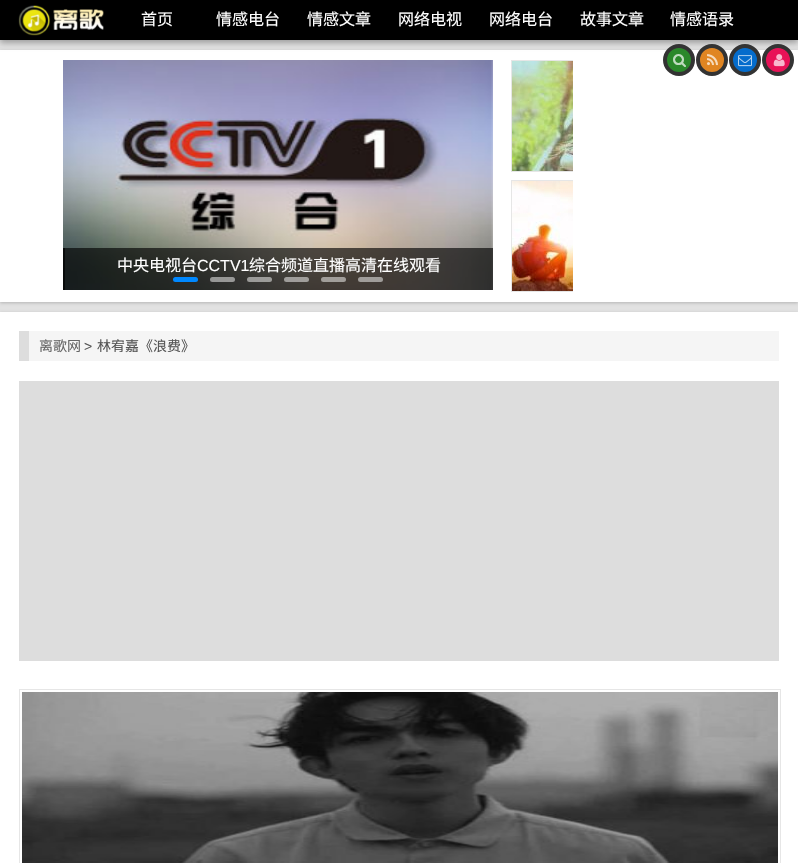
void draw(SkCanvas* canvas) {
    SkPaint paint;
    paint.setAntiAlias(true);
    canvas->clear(0xFFE2E2E2);
    paint.setColor(0x33000000);
    paint.setMaskFilter(SkMaskFilter::MakeBlur(kNormal_SkBlurStyle, 1.5f));
    canvas->drawRect(SkRect::MakeXYWH(0, 51, 798, 252), paint);
    paint.setMaskFilter(nullptr);
    paint.setColor(0xFFFFFFFF);
    canvas->drawRect(SkRect::MakeXYWH(0, 50, 798, 252), paint);
    paint.setColor(0x4D000000);
    paint.setMaskFilter(SkMaskFilter::MakeBlur(kNormal_SkBlurStyle, 3));
    canvas->drawRect(SkRect::MakeXYWH(0, 3, 798, 40), paint);
    paint.setMaskFilter(nullptr);
    paint.setColor(0xFF000000);
    canvas->drawRect(SkRect::MakeXYWH(0, 0, 798, 40), paint);
    canvas->drawImageRect(SkImages::DeferredFromEncodedData(SkData::MakeFromFileName("img1.png")), SkRect::MakeXYWH(18, 5, 86, 31), SkSamplingOptions());
    SkFont font1(fontMgr->matchFamilyStyle("Noto Sans CJK SC", SkFontStyle::Normal()), 16);
    font1.setSubpixel(true);
    paint.setColor(0xFFFFFFFF);
    canvas->drawString("首页", 141, 25, font1, paint);
    canvas->drawString("情感电台", 216, 25, font1, paint);
    canvas->drawString("情感文章", 307, 25, font1, paint);
    canvas->drawString("网络电视", 398, 25, font1, paint);
    canvas->drawString("网络电台", 489, 25, font1, paint);
    canvas->drawString("故事文章", 580, 25, font1, paint);
    canvas->drawString("情感语录", 670, 25, font1, paint);
    paint.setColor(0xFF2A882A);
    canvas->drawCircle(679, 60, 14, paint);
    paint.setStyle(SkPaint::kStroke_Style);
    paint.setStrokeWidth(4);
    paint.setColor(0xFF333333);
    canvas->drawCircle(679, 60, 14, paint);
    SkFont font2(fontMgr->matchFamilyStyle("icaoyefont", SkFontStyle::Normal()), 14);
    font2.setSubpixel(true);
    paint.setStyle(SkPaint::kFill_Style);
    paint.setColor(0xFFBFDBBF);
    canvas->drawString("?", 673, 65, font2, paint);
    paint.setColor(0xFFE08522);
    canvas->drawCircle(712, 60, 14, paint);
    paint.setStyle(SkPaint::kStroke_Style);
    paint.setColor(0xFF333333);
    canvas->drawCircle(712, 60, 14, paint);
    canvas->drawImageRect(SkImages::DeferredFromEncodedData(SkData::MakeFromFileName("img2.png")), SkRect::MakeXYWH(707, 54, 11, 12), SkSamplingOptions());
    paint.setStyle(SkPaint::kFill_Style);
    paint.setColor(0xFF046CCC);
    canvas->drawCircle(745, 60, 14, paint);
    paint.setStyle(SkPaint::kStroke_Style);
    paint.setColor(0xFF333333);
    canvas->drawCircle(745, 60, 14, paint);
    canvas->drawImageRect(SkImages::DeferredFromEncodedData(SkData::MakeFromFileName("img3.png")), SkRect::MakeXYWH(738, 55, 14, 12), SkSamplingOptions());
    paint.setStyle(SkPaint::kFill_Style);
    paint.setColor(0xFFE81257);
    canvas->drawCircle(778, 60, 14, paint);
    paint.setStyle(SkPaint::kStroke_Style);
    paint.setColor(0xFF333333);
    canvas->drawCircle(778, 60, 14, paint);
    canvas->drawImageRect(SkImages::DeferredFromEncodedData(SkData::MakeFromFileName("img4.png")), SkRect::MakeXYWH(773, 54, 12, 13), SkSamplingOptions());
    canvas->drawImageRect(SkImages::DeferredFromEncodedData(SkData::MakeFromFileName("img5.png")), SkRect::MakeXYWH(63, 60, 430, 230), SkSamplingOptions());
    paint.setStyle(SkPaint::kFill_Style);
    paint.setColor(0xA3000000);
    canvas->drawRect(SkRect::MakeXYWH(63, 248, 2, 42), paint);
    canvas->drawRect(SkRect::MakeXYWH(63, 248, 430, 42), paint);
    paint.setColor(0xFFFFFFFF);
    canvas->drawString("中央电视台", 117, 271, font1, paint);
    SkFont font3(fontMgr->matchFamilyStyle("Liberation Sans", SkFontStyle::Normal()), 16);
    font3.setSubpixel(true);
    canvas->drawString("CCTV1", 197, 271, font3, paint);
    canvas->drawString("综合频道直播高清在线观看", 249, 271, font1, paint);
    paint.setColor(0xFF0088FF);
    canvas->drawRoundRect(SkRect::MakeXYWH(173, 277, 25, 5), 2.5f, 2.5f, paint);
    paint.setColor(0x80FFFFFF);
    canvas->drawRoundRect(SkRect::MakeXYWH(210, 277, 25, 5), 2.5f, 2.5f, paint);
    canvas->drawRoundRect(SkRect::MakeXYWH(247, 277, 25, 5), 2.5f, 2.5f, paint);
    canvas->drawRoundRect(SkRect::MakeXYWH(284, 277, 25, 5), 2.5f, 2.5f, paint);
    paint.setColor(0xFFA19E9A);
    canvas->drawRoundRect(SkRect::MakeXYWH(321, 277, 25, 5), 2.5f, 2.5f, paint);
    paint.setColor(0xFFA09D9A);
    canvas->drawRoundRect(SkRect::MakeXYWH(358, 277, 25, 5), 2.5f, 2.5f, paint);
    canvas->save();
    canvas->clipRect(SkRect::MakeXYWH(503, 60, 70, 232));
    paint.setStyle(SkPaint::kStroke_Style);
    paint.setStrokeWidth(1);
    paint.setColor(0xFFE6E6E6);
    canvas->drawRect(SkRect::MakeXYWH(511.5f, 60.5f, 111, 111), paint);
    canvas->restore();
    canvas->drawImageRect(SkImages::DeferredFromEncodedData(SkData::MakeFromFileName("img6.png")), SkRect::MakeXYWH(512, 61, 61, 110), SkSamplingOptions());
    canvas->save();
    canvas->clipRect(SkRect::MakeXYWH(503, 60, 70, 232));
    canvas->drawRect(SkRect::MakeXYWH(511.5f, 180.5f, 111, 111), paint);
    canvas->restore();
    canvas->drawImageRect(SkImages::DeferredFromEncodedData(SkData::MakeFromFileName("img7.png")), SkRect::MakeXYWH(512, 181, 61, 110), SkSamplingOptions());
    paint.setStyle(SkPaint::kFill_Style);
    paint.setColor(0x33000000);
    paint.setMaskFilter(SkMaskFilter::MakeBlur(kNormal_SkBlurStyle, 1.5f));
    canvas->drawRect(SkRect::MakeXYWH(0, 313, 798, 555), paint);
    paint.setMaskFilter(nullptr);
    paint.setColor(0xFFFFFFFF);
    canvas->drawRect(SkRect::MakeXYWH(0, 312, 798, 551), paint);
    paint.setColor(0xFFF5F5F5);
    canvas->drawRect(SkRect::MakeXYWH(29, 331, 750, 30), paint);
    paint.setColor(0xFFDDDDDD);
    canvas->drawRect(SkRect::MakeXYWH(19, 331, 10, 30), paint);
    SkFont font4(fontMgr->matchFamilyStyle("Noto Sans CJK SC", SkFontStyle::Normal()), 14);
    font4.setSubpixel(true);
    paint.setColor(0xFF666666);
    canvas->drawString("离歌网", 39, 351, font4, paint);
    SkFont font5(fontMgr->matchFamilyStyle("Liberation Sans", SkFontStyle::Normal()), 14);
    font5.setSubpixel(true);
    paint.setColor(0xFF555555);
    canvas->drawString(">", 84, 351, font5, paint);
    canvas->drawString("林宥嘉《浪费》", 97, 351, font4, paint);
    paint.setColor(0xFFDDDDDD);
    canvas->drawRect(SkRect::MakeXYWH(19, 381, 760, 280), paint);
    paint.setStyle(SkPaint::kStroke_Style);
    paint.setColor(0xFFE6E6E6);
    canvas->drawRect(SkRect::MakeXYWH(19.5f, 689.5f, 761, 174), paint);
    canvas->drawImageRect(SkImages::DeferredFromEncodedData(SkData::MakeFromFileName("img8.png")), SkRect::MakeXYWH(22, 692, 756, 171), SkSamplingOptions());
}
